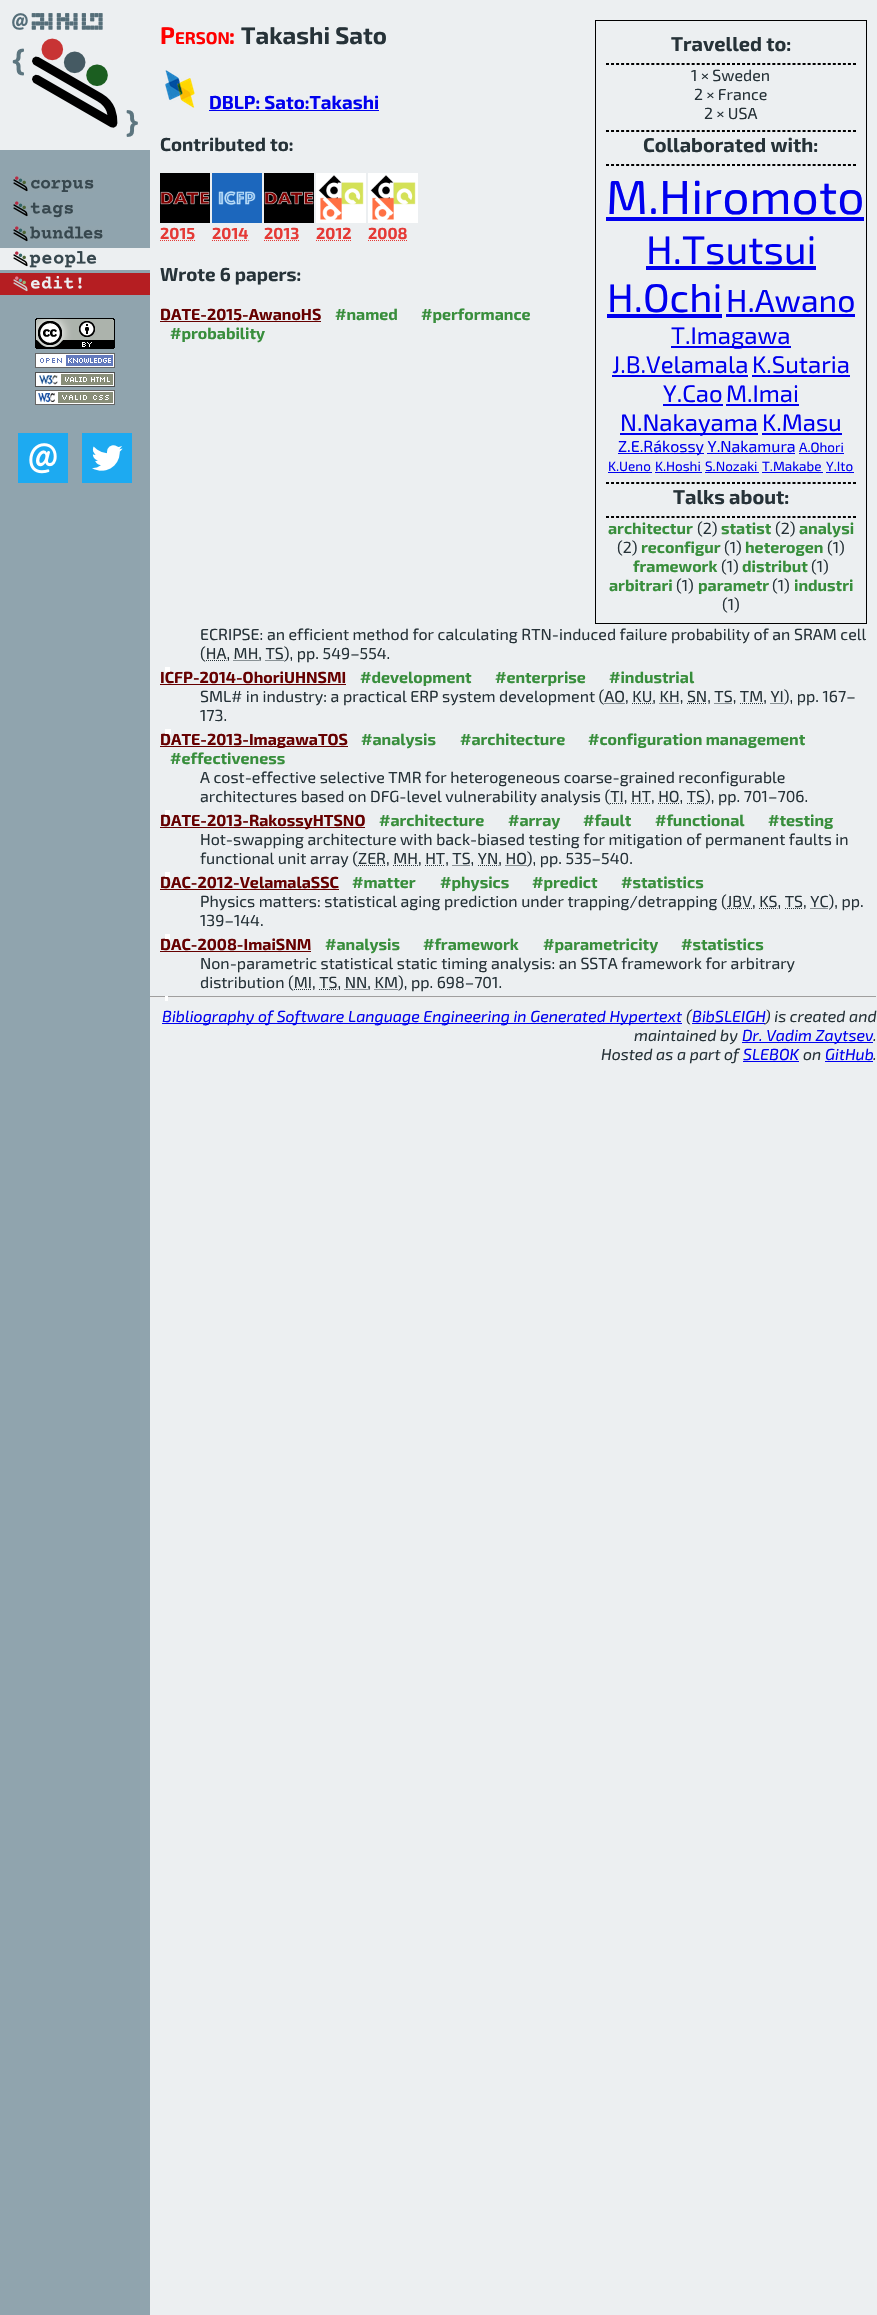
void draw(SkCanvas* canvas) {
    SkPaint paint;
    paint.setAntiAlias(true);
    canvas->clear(0xFFECEFF1);
    paint.setColor(0xFF90A4AE);
    canvas->drawRect(SkRect::MakeXYWH(0, 150, 150, 2165), paint);
    canvas->drawImageRect(SkImages::DeferredFromEncodedData(SkData::MakeFromFileName("img1.png")), SkRect::MakeXYWH(0, 0, 150, 150), SkSamplingOptions());
    canvas->drawImageRect(SkImages::DeferredFromEncodedData(SkData::MakeFromFileName("img2.png")), SkRect::MakeXYWH(13, 176, 81, 16), SkSamplingOptions());
    canvas->drawImageRect(SkImages::DeferredFromEncodedData(SkData::MakeFromFileName("img3.png")), SkRect::MakeXYWH(13, 201, 60, 17), SkSamplingOptions());
    canvas->drawImageRect(SkImages::DeferredFromEncodedData(SkData::MakeFromFileName("img4.png")), SkRect::MakeXYWH(13, 226, 90, 16), SkSamplingOptions());
    canvas->drawImageRect(SkImages::DeferredFromEncodedData(SkData::MakeFromFileName("img5.png")), SkRect::MakeXYWH(0, 248, 150, 22), SkSamplingOptions());
    canvas->drawImageRect(SkImages::DeferredFromEncodedData(SkData::MakeFromFileName("img6.png")), SkRect::MakeXYWH(0, 273, 150, 22), SkSamplingOptions());
    canvas->drawImageRect(SkImages::DeferredFromEncodedData(SkData::MakeFromFileName("img7.png")), SkRect::MakeXYWH(35, 318, 80, 31), SkSamplingOptions());
    canvas->drawImageRect(SkImages::DeferredFromEncodedData(SkData::MakeFromFileName("img8.png")), SkRect::MakeXYWH(35, 353, 80, 15), SkSamplingOptions());
    canvas->drawImageRect(SkImages::DeferredFromEncodedData(SkData::MakeFromFileName("img9.png")), SkRect::MakeXYWH(35, 372, 80, 15), SkSamplingOptions());
    canvas->drawImageRect(SkImages::DeferredFromEncodedData(SkData::MakeFromFileName("img10.png")), SkRect::MakeXYWH(35, 390, 80, 15), SkSamplingOptions());
    canvas->drawImageRect(SkImages::DeferredFromEncodedData(SkData::MakeFromFileName("img11.png")), SkRect::MakeXYWH(18, 433, 50, 50), SkSamplingOptions());
    canvas->drawImageRect(SkImages::DeferredFromEncodedData(SkData::MakeFromFileName("img12.png")), SkRect::MakeXYWH(82, 433, 50, 50), SkSamplingOptions());
    SkFont font1(fontMgr->matchFamilyStyle("Exo 2", SkFontStyle::Bold()), 24);
    font1.setSubpixel(true);
    paint.setColor(0xFFFF0000);
    canvas->drawString("P", 160, 44, font1, paint);
    SkFont font2(fontMgr->matchFamilyStyle("Exo 2", SkFontStyle::Bold()), 17);
    font2.setSubpixel(true);
    canvas->drawString("ERSON", 175, 44, font2, paint);
    canvas->drawString(":", 229, 44, font1, paint);
    paint.setColor(0xFF263238);
    canvas->drawString("Takashi Sato", 241, 44, font1, paint);
    paint.setStyle(SkPaint::kStroke_Style);
    paint.setStrokeWidth(1);
    paint.setColor(0xFF000000);
    canvas->drawRect(SkRect::MakeXYWH(595.5f, 20.5f, 271, 603), paint);
    SkFont font3(fontMgr->matchFamilyStyle("Exo 2", SkFontStyle::Bold()), 20);
    font3.setSubpixel(true);
    paint.setStyle(SkPaint::kFill_Style);
    paint.setColor(0xFF263238);
    canvas->drawString("Travelled to:", 671, 51, font3, paint);
    paint.setStyle(SkPaint::kStroke_Style);
    paint.setColor(0xFF000000);
    paint.setPathEffect(SkDashPathEffect::Make({{3, 2.04f}}, 0));
    canvas->drawPath(SkPathBuilder().moveTo(606, 63.5f).lineTo(856, 63.5f).detach(), paint);
    paint.setPathEffect(nullptr);
    paint.setStyle(SkPaint::kFill_Style);
    canvas->drawRect(SkRect::MakeXYWH(855, 63, 1, 2), paint);
    paint.setStyle(SkPaint::kStroke_Style);
    paint.setPathEffect(SkDashPathEffect::Make({{3, 2.04f}}, 0));
    canvas->drawPath(SkPathBuilder().moveTo(606, 64.5f).lineTo(856, 64.5f).detach(), paint);
    paint.setPathEffect(nullptr);
    SkFont font4(fontMgr->matchFamilyStyle("Exo 2", SkFontStyle::Normal()), 16);
    font4.setSubpixel(true);
    paint.setStyle(SkPaint::kFill_Style);
    paint.setColor(0xFF263238);
    canvas->drawString("1 × Sweden", 691, 81, font4, paint);
    canvas->drawString("2 × France", 694, 100, font4, paint);
    canvas->drawString("2 × USA", 704, 119, font4, paint);
    paint.setStyle(SkPaint::kStroke_Style);
    paint.setColor(0xFF000000);
    paint.setPathEffect(SkDashPathEffect::Make({{3, 2.04f}}, 0));
    canvas->drawPath(SkPathBuilder().moveTo(606, 130.5f).lineTo(856, 130.5f).detach(), paint);
    paint.setPathEffect(nullptr);
    paint.setStyle(SkPaint::kFill_Style);
    canvas->drawRect(SkRect::MakeXYWH(855, 130, 1, 2), paint);
    paint.setStyle(SkPaint::kStroke_Style);
    paint.setPathEffect(SkDashPathEffect::Make({{3, 2.04f}}, 0));
    canvas->drawPath(SkPathBuilder().moveTo(606, 131.5f).lineTo(856, 131.5f).detach(), paint);
    paint.setPathEffect(nullptr);
    paint.setStyle(SkPaint::kFill_Style);
    paint.setColor(0xFF263238);
    canvas->drawString("Collaborated with:", 643, 152, font3, paint);
    paint.setStyle(SkPaint::kStroke_Style);
    paint.setColor(0xFF000000);
    paint.setPathEffect(SkDashPathEffect::Make({{3, 2.04f}}, 0));
    canvas->drawPath(SkPathBuilder().moveTo(606, 164.5f).lineTo(856, 164.5f).detach(), paint);
    paint.setPathEffect(nullptr);
    paint.setStyle(SkPaint::kFill_Style);
    canvas->drawRect(SkRect::MakeXYWH(855, 164, 1, 2), paint);
    paint.setStyle(SkPaint::kStroke_Style);
    paint.setPathEffect(SkDashPathEffect::Make({{3, 2.04f}}, 0));
    canvas->drawPath(SkPathBuilder().moveTo(606, 165.5f).lineTo(856, 165.5f).detach(), paint);
    paint.setPathEffect(nullptr);
    SkFont font5(fontMgr->matchFamilyStyle("Exo 2", SkFontStyle::Normal()), 48);
    font5.setSubpixel(true);
    paint.setStyle(SkPaint::kFill_Style);
    paint.setColor(0xFF0000EE);
    canvas->drawString("M.Hiromoto", 606, 214, font5, paint);
    canvas->drawRect(SkRect::MakeXYWH(606, 217, 258, 4), paint);
    SkFont font6(fontMgr->matchFamilyStyle("Exo 2", SkFontStyle::Normal()), 40);
    font6.setSubpixel(true);
    canvas->drawString("H.Tsutsui", 646, 264, font6, paint);
    canvas->drawRect(SkRect::MakeXYWH(646, 266, 170, 4), paint);
    canvas->drawString("H.Ochi", 607, 312, font6, paint);
    canvas->drawRect(SkRect::MakeXYWH(607, 314, 115, 4), paint);
    SkFont font7(fontMgr->matchFamilyStyle("Exo 2", SkFontStyle::Normal()), 32);
    font7.setSubpixel(true);
    canvas->drawString("H.Awano", 726, 312, font7, paint);
    canvas->drawRect(SkRect::MakeXYWH(726, 314, 129, 3), paint);
    canvas->drawRect(SkRect::MakeXYWH(671, 346, 120, 2), paint);
    SkFont font8(fontMgr->matchFamilyStyle("Exo 2", SkFontStyle::Normal()), 24);
    font8.setSubpixel(true);
    canvas->drawString("T.Imagawa", 671, 344, font8, paint);
    canvas->drawString("J.B.Velamala", 612, 373, font8, paint);
    canvas->drawRect(SkRect::MakeXYWH(612, 375, 136, 2), paint);
    canvas->drawString("K.Sutaria", 752, 373, font8, paint);
    canvas->drawRect(SkRect::MakeXYWH(752, 375, 98, 2), paint);
    canvas->drawString("Y.Cao", 663, 402, font8, paint);
    canvas->drawRect(SkRect::MakeXYWH(663, 404, 60, 2), paint);
    canvas->drawString("M.Imai", 726, 402, font8, paint);
    canvas->drawRect(SkRect::MakeXYWH(726, 404, 73, 2), paint);
    canvas->drawRect(SkRect::MakeXYWH(620, 433, 138, 2), paint);
    canvas->drawString("N.Nakayama", 620, 431, font8, paint);
    canvas->drawString("K.Masu", 762, 431, font8, paint);
    canvas->drawRect(SkRect::MakeXYWH(762, 433, 80, 2), paint);
    canvas->drawRect(SkRect::MakeXYWH(618, 453, 86, 1), paint);
    canvas->drawString("Z.E.Rákossy Y.Nakamura", 618, 452, font4, paint);
    SkFont font9(fontMgr->matchFamilyStyle("Exo 2", SkFontStyle::Normal()), 13.5f);
    font9.setSubpixel(true);
    canvas->drawString("A.Ohori", 799, 452, font9, paint);
    canvas->drawRect(SkRect::MakeXYWH(799, 453, 45, 1), paint);
    canvas->drawRect(SkRect::MakeXYWH(707, 453, 88, 1), paint);
    canvas->drawString("K.Ueno", 608, 471, font9, paint);
    canvas->drawRect(SkRect::MakeXYWH(608, 472, 44, 1), paint);
    canvas->drawString("K.Hoshi", 655, 471, font9, paint);
    canvas->drawRect(SkRect::MakeXYWH(655, 472, 47, 1), paint);
    canvas->drawString("S.Nozaki", 705, 471, font9, paint);
    canvas->drawRect(SkRect::MakeXYWH(705, 472, 54, 1), paint);
    canvas->drawString("T.Makabe", 762, 471, font9, paint);
    canvas->drawRect(SkRect::MakeXYWH(762, 472, 61, 1), paint);
    canvas->drawString("Y.Ito", 826, 471, font9, paint);
    canvas->drawRect(SkRect::MakeXYWH(826, 472, 28, 1), paint);
    paint.setStyle(SkPaint::kStroke_Style);
    paint.setColor(0xFF000000);
    paint.setPathEffect(SkDashPathEffect::Make({{3, 2.04f}}, 0));
    canvas->drawPath(SkPathBuilder().moveTo(606, 482.5f).lineTo(856, 482.5f).detach(), paint);
    paint.setPathEffect(nullptr);
    paint.setStyle(SkPaint::kFill_Style);
    canvas->drawRect(SkRect::MakeXYWH(855, 482, 1, 2), paint);
    paint.setStyle(SkPaint::kStroke_Style);
    paint.setPathEffect(SkDashPathEffect::Make({{3, 2.04f}}, 0));
    canvas->drawPath(SkPathBuilder().moveTo(606, 483.5f).lineTo(856, 483.5f).detach(), paint);
    paint.setPathEffect(nullptr);
    paint.setStyle(SkPaint::kFill_Style);
    paint.setColor(0xFF263238);
    canvas->drawString("Talks about:", 673, 504, font3, paint);
    paint.setStyle(SkPaint::kStroke_Style);
    paint.setColor(0xFF000000);
    paint.setPathEffect(SkDashPathEffect::Make({{3, 2.04f}}, 0));
    canvas->drawPath(SkPathBuilder().moveTo(606, 516.5f).lineTo(856, 516.5f).detach(), paint);
    paint.setPathEffect(nullptr);
    paint.setStyle(SkPaint::kFill_Style);
    canvas->drawRect(SkRect::MakeXYWH(855, 516, 1, 2), paint);
    paint.setStyle(SkPaint::kStroke_Style);
    paint.setPathEffect(SkDashPathEffect::Make({{3, 2.04f}}, 0));
    canvas->drawPath(SkPathBuilder().moveTo(606, 517.5f).lineTo(856, 517.5f).detach(), paint);
    paint.setPathEffect(nullptr);
    SkFont font10(fontMgr->matchFamilyStyle("Exo 2", SkFontStyle::Bold()), 16);
    font10.setSubpixel(true);
    paint.setStyle(SkPaint::kFill_Style);
    paint.setColor(0xFF388E3C);
    canvas->drawString("architectur", 608, 534, font10, paint);
    paint.setColor(0xFF263238);
    canvas->drawString("(2)", 697, 534, font4, paint);
    paint.setColor(0xFF388E3C);
    canvas->drawString("statist", 721, 534, font10, paint);
    paint.setColor(0xFF263238);
    canvas->drawString("(2)", 775, 534, font4, paint);
    paint.setColor(0xFF388E3C);
    canvas->drawString("analysi", 799, 534, font10, paint);
    paint.setColor(0xFF263238);
    canvas->drawString("(2)", 617, 553, font4, paint);
    paint.setColor(0xFF388E3C);
    canvas->drawString("reconfigur", 641, 553, font10, paint);
    paint.setColor(0xFF263238);
    canvas->drawString("(1)", 724, 553, font4, paint);
    paint.setColor(0xFF388E3C);
    canvas->drawString("heterogen", 745, 553, font10, paint);
    paint.setColor(0xFF263238);
    canvas->drawString("(1)", 827, 553, font4, paint);
    paint.setColor(0xFF388E3C);
    canvas->drawString("framework", 633, 572, font10, paint);
    paint.setColor(0xFF263238);
    canvas->drawString("(1)", 721, 572, font4, paint);
    paint.setColor(0xFF388E3C);
    canvas->drawString("distribut", 742, 572, font10, paint);
    paint.setColor(0xFF263238);
    canvas->drawString("(1)", 811, 572, font4, paint);
    paint.setColor(0xFF388E3C);
    canvas->drawString("arbitrari", 609, 591, font10, paint);
    paint.setColor(0xFF263238);
    canvas->drawString("(1)", 676, 591, font4, paint);
    paint.setColor(0xFF388E3C);
    canvas->drawString("parametr", 698, 591, font10, paint);
    paint.setColor(0xFF263238);
    canvas->drawString("(1)", 772, 591, font4, paint);
    paint.setColor(0xFF388E3C);
    canvas->drawString("industri", 794, 591, font10, paint);
    paint.setColor(0xFF263238);
    canvas->drawString("(1)", 722, 610, font4, paint);
    canvas->drawImageRect(SkImages::DeferredFromEncodedData(SkData::MakeFromFileName("img13.png")), SkRect::MakeXYWH(165, 70, 30, 38), SkSamplingOptions());
    SkFont font11(fontMgr->matchFamilyStyle("Exo 2", SkFontStyle::Bold()), 18.75f);
    font11.setSubpixel(true);
    paint.setColor(0xFF0000EE);
    canvas->drawString("DBLP: Sato:Takashi", 209, 109, font11, paint);
    canvas->drawRect(SkRect::MakeXYWH(209, 110, 170, 1), paint);
    paint.setColor(0xFF263238);
    canvas->drawString("Contributed to:", 160, 151, font11, paint);
    canvas->drawImageRect(SkImages::DeferredFromEncodedData(SkData::MakeFromFileName("img14.png")), SkRect::MakeXYWH(160, 173, 50, 50), SkSamplingOptions());
    paint.setColor(0xFFE53935);
    canvas->drawString("2015", 160, 239, font10, paint);
    paint.setStyle(SkPaint::kStroke_Style);
    paint.setPathEffect(SkDashPathEffect::Make({{1, 1}}, 0));
    canvas->drawPath(SkPathBuilder().moveTo(160, 240.5f).lineTo(195, 240.5f).detach(), paint);
    paint.setPathEffect(nullptr);
    canvas->drawImageRect(SkImages::DeferredFromEncodedData(SkData::MakeFromFileName("img15.png")), SkRect::MakeXYWH(212, 173, 50, 50), SkSamplingOptions());
    paint.setStyle(SkPaint::kFill_Style);
    canvas->drawString("2014", 212, 239, font10, paint);
    paint.setStyle(SkPaint::kStroke_Style);
    paint.setPathEffect(SkDashPathEffect::Make({{1, 1}}, 0));
    canvas->drawPath(SkPathBuilder().moveTo(212, 240.5f).lineTo(248.5f, 240.5f).detach(), paint);
    paint.setPathEffect(nullptr);
    canvas->drawImageRect(SkImages::DeferredFromEncodedData(SkData::MakeFromFileName("img14.png")), SkRect::MakeXYWH(264, 173, 50, 50), SkSamplingOptions());
    paint.setStyle(SkPaint::kFill_Style);
    canvas->drawString("2013", 264, 239, font10, paint);
    paint.setStyle(SkPaint::kStroke_Style);
    paint.setPathEffect(SkDashPathEffect::Make({{1, 1}}, 0));
    canvas->drawPath(SkPathBuilder().moveTo(264, 240.5f).lineTo(299.5f, 240.5f).detach(), paint);
    paint.setPathEffect(nullptr);
    canvas->drawImageRect(SkImages::DeferredFromEncodedData(SkData::MakeFromFileName("img16.png")), SkRect::MakeXYWH(316, 173, 50, 50), SkSamplingOptions());
    paint.setStyle(SkPaint::kFill_Style);
    canvas->drawString("2012", 316, 239, font10, paint);
    paint.setStyle(SkPaint::kStroke_Style);
    paint.setPathEffect(SkDashPathEffect::Make({{1, 1}}, 0));
    canvas->drawPath(SkPathBuilder().moveTo(316, 240.5f).lineTo(351.5f, 240.5f).detach(), paint);
    paint.setPathEffect(nullptr);
    canvas->drawImageRect(SkImages::DeferredFromEncodedData(SkData::MakeFromFileName("img16.png")), SkRect::MakeXYWH(368, 173, 50, 50), SkSamplingOptions());
    paint.setStyle(SkPaint::kFill_Style);
    canvas->drawString("2008", 368, 239, font10, paint);
    paint.setStyle(SkPaint::kStroke_Style);
    paint.setPathEffect(SkDashPathEffect::Make({{1, 1}}, 0));
    canvas->drawPath(SkPathBuilder().moveTo(368, 240.5f).lineTo(407.5f, 240.5f).detach(), paint);
    paint.setPathEffect(nullptr);
    paint.setStyle(SkPaint::kFill_Style);
    paint.setColor(0xFF263238);
    canvas->drawString("Wrote 6 papers:", 160, 281, font11, paint);
    paint.setColor(0xFF660000);
    canvas->drawString("DATE-2015-AwanoHS", 160, 320, font10, paint);
    canvas->drawRect(SkRect::MakeXYWH(160, 321, 161, 1), paint);
    paint.setColor(0xFF388E3C);
    canvas->drawString("#named", 335, 320, font10, paint);
    canvas->drawString("#performance", 421, 320, font10, paint);
    canvas->drawString("#probability", 170, 339, font10, paint);
    paint.setColor(0xFF263238);
    canvas->drawString("ECRIPSE: an efficient method for calculating RTN-induced failure probability of an SRAM cell", 200, 640, font4, paint);
    canvas->drawString("(HA, MH, TS), pp. 549–554.", 200, 659, font4, paint);
    paint.setStyle(SkPaint::kStroke_Style);
    paint.setPathEffect(SkDashPathEffect::Make({{1, 1}}, 0));
    canvas->drawPath(SkPathBuilder().moveTo(206, 660.5f).lineTo(226.5f, 660.5f).moveTo(233.5f, 660.5f).lineTo(258.5f, 660.5f).detach(), paint);
    paint.setPathEffect(nullptr);
    paint.setPathEffect(SkDashPathEffect::Make({{1, 1}}, 0));
    canvas->drawPath(SkPathBuilder().moveTo(265.5f, 660.5f).lineTo(284, 660.5f).detach(), paint);
    paint.setPathEffect(nullptr);
    paint.setStyle(SkPaint::kFill_Style);
    paint.setColor(0xFF660000);
    canvas->drawString("ICFP-2014-OhoriUHNSMI", 160, 683, font10, paint);
    paint.setColor(0xFFFFFFFF);
    canvas->drawRect(SkRect::MakeXYWH(165, 667, 5, 5), paint);
    paint.setColor(0xFF660000);
    canvas->drawRect(SkRect::MakeXYWH(160, 684, 186, 1), paint);
    paint.setColor(0xFF388E3C);
    canvas->drawString("#development", 360, 683, font10, paint);
    canvas->drawString("#enterprise", 495, 683, font10, paint);
    canvas->drawString("#industrial", 609, 683, font10, paint);
    paint.setColor(0xFF263238);
    canvas->drawString("SML# in industry: a practical ERP system development (AO, KU, KH, SN, TS, TM, YI), pp. 167–", 200, 702, font4, paint);
    paint.setStyle(SkPaint::kStroke_Style);
    paint.setPathEffect(SkDashPathEffect::Make({{1, 1}}, 0));
    canvas->drawPath(SkPathBuilder().moveTo(604.5f, 703.5f).lineTo(625, 703.5f).moveTo(632, 703.5f).lineTo(652.5f, 703.5f).detach(), paint);
    paint.setPathEffect(nullptr);
    paint.setPathEffect(SkDashPathEffect::Make({{1, 1}}, 0));
    canvas->drawPath(SkPathBuilder().moveTo(659.5f, 703.5f).lineTo(679.5f, 703.5f).moveTo(687, 703.5f).lineTo(707, 703.5f).detach(), paint);
    paint.setPathEffect(nullptr);
    paint.setPathEffect(SkDashPathEffect::Make({{1, 1}}, 0));
    canvas->drawPath(SkPathBuilder().moveTo(714.5f, 703.5f).lineTo(732.5f, 703.5f).moveTo(740, 703.5f).lineTo(763, 703.5f).detach(), paint);
    paint.setPathEffect(nullptr);
    paint.setPathEffect(SkDashPathEffect::Make({{1, 1}}, 0));
    canvas->drawPath(SkPathBuilder().moveTo(770.5f, 703.5f).lineTo(784, 703.5f).detach(), paint);
    paint.setPathEffect(nullptr);
    paint.setStyle(SkPaint::kFill_Style);
    canvas->drawString("173.", 200, 721, font4, paint);
    paint.setColor(0xFF660000);
    canvas->drawRect(SkRect::MakeXYWH(160, 746, 188, 1), paint);
    canvas->drawString("DATE-2013-ImagawaTOS", 160, 745, font10, paint);
    paint.setColor(0xFFFFFFFF);
    canvas->drawRect(SkRect::MakeXYWH(165, 729, 6, 5), paint);
    paint.setColor(0xFF388E3C);
    canvas->drawString("#analysis", 361, 745, font10, paint);
    canvas->drawString("#architecture", 460, 745, font10, paint);
    canvas->drawString("#configuration management", 588, 745, font10, paint);
    canvas->drawString("#effectiveness", 170, 764, font10, paint);
    paint.setColor(0xFF263238);
    canvas->drawString("A cost-effective selective TMR for heterogeneous coarse-grained reconfigurable", 200, 783, font4, paint);
    canvas->drawString("architectures based on DFG-level vulnerability analysis (TI, HT, HO, TS), pp. 701–706.", 200, 802, font4, paint);
    paint.setStyle(SkPaint::kStroke_Style);
    paint.setPathEffect(SkDashPathEffect::Make({{1, 1}}, 0));
    canvas->drawPath(SkPathBuilder().moveTo(610, 803.5f).lineTo(624, 803.5f).moveTo(631, 803.5f).lineTo(651, 803.5f).detach(), paint);
    paint.setPathEffect(nullptr);
    paint.setPathEffect(SkDashPathEffect::Make({{1, 1}}, 0));
    canvas->drawPath(SkPathBuilder().moveTo(658, 803.5f).lineTo(679.5f, 803.5f).moveTo(687, 803.5f).lineTo(705, 803.5f).detach(), paint);
    paint.setPathEffect(nullptr);
    paint.setStyle(SkPaint::kFill_Style);
    paint.setColor(0xFF660000);
    canvas->drawRect(SkRect::MakeXYWH(160, 827, 205, 1), paint);
    canvas->drawString("DATE-2013-RakossyHTSNO", 160, 826, font10, paint);
    paint.setColor(0xFFFFFFFF);
    canvas->drawRect(SkRect::MakeXYWH(165, 810, 5, 5), paint);
    paint.setColor(0xFF388E3C);
    canvas->drawString("#architecture", 379, 826, font10, paint);
    canvas->drawString("#array", 508, 826, font10, paint);
    canvas->drawString("#fault", 583, 826, font10, paint);
    canvas->drawString("#functional", 655, 826, font10, paint);
    canvas->drawString("#testing", 768, 826, font10, paint);
    paint.setColor(0xFF263238);
    canvas->drawString("Hot-swapping architecture with back-biased testing for mitigation of permanent faults in", 200, 845, font4, paint);
    canvas->drawString("functional unit array (ZER, MH, HT, TS, YN, HO), pp. 535–540.", 200, 864, font4, paint);
    paint.setStyle(SkPaint::kStroke_Style);
    paint.setPathEffect(SkDashPathEffect::Make({{1, 1}}, 0));
    canvas->drawPath(SkPathBuilder().moveTo(358, 865.5f).lineTo(386, 865.5f).moveTo(393, 865.5f).lineTo(418, 865.5f).detach(), paint);
    paint.setPathEffect(nullptr);
    paint.setPathEffect(SkDashPathEffect::Make({{1, 1}}, 0));
    canvas->drawPath(SkPathBuilder().moveTo(425, 865.5f).lineTo(445, 865.5f).moveTo(452.5f, 865.5f).lineTo(470.5f, 865.5f).detach(), paint);
    paint.setPathEffect(nullptr);
    paint.setPathEffect(SkDashPathEffect::Make({{1, 1}}, 0));
    canvas->drawPath(SkPathBuilder().moveTo(478, 865.5f).lineTo(498.5f, 865.5f).moveTo(505.5f, 865.5f).lineTo(527, 865.5f).detach(), paint);
    paint.setPathEffect(nullptr);
    paint.setStyle(SkPaint::kFill_Style);
    paint.setColor(0xFF660000);
    canvas->drawString("DAC-2012-VelamalaSSC", 160, 888, font10, paint);
    paint.setColor(0xFFFFFFFF);
    canvas->drawRect(SkRect::MakeXYWH(165, 872, 5, 5), paint);
    paint.setColor(0xFF660000);
    canvas->drawRect(SkRect::MakeXYWH(160, 889, 179, 1), paint);
    paint.setColor(0xFF388E3C);
    canvas->drawString("#matter", 352, 888, font10, paint);
    canvas->drawString("#physics", 440, 888, font10, paint);
    canvas->drawString("#predict", 532, 888, font10, paint);
    canvas->drawString("#statistics", 621, 888, font10, paint);
    paint.setColor(0xFF263238);
    canvas->drawString("Physics matters: statistical aging prediction under trapping/detrapping (JBV, KS, TS, YC), pp.", 200, 907, font4, paint);
    paint.setStyle(SkPaint::kStroke_Style);
    paint.setPathEffect(SkDashPathEffect::Make({{1, 1}}, 0));
    canvas->drawPath(SkPathBuilder().moveTo(727, 908.5f).lineTo(752, 908.5f).moveTo(759, 908.5f).lineTo(777.5f, 908.5f).detach(), paint);
    paint.setPathEffect(nullptr);
    paint.setPathEffect(SkDashPathEffect::Make({{1, 1}}, 0));
    canvas->drawPath(SkPathBuilder().moveTo(785, 908.5f).lineTo(803, 908.5f).moveTo(810.5f, 908.5f).lineTo(828.5f, 908.5f).detach(), paint);
    paint.setPathEffect(nullptr);
    paint.setStyle(SkPaint::kFill_Style);
    canvas->drawString("139–144.", 200, 926, font4, paint);
    paint.setColor(0xFF660000);
    canvas->drawString("DAC-2008-ImaiSNM", 160, 950, font10, paint);
    paint.setColor(0xFFFFFFFF);
    canvas->drawRect(SkRect::MakeXYWH(165, 934, 5, 5), paint);
    paint.setColor(0xFF660000);
    canvas->drawRect(SkRect::MakeXYWH(160, 951, 151, 1), paint);
    paint.setColor(0xFF388E3C);
    canvas->drawString("#analysis", 325, 950, font10, paint);
    canvas->drawString("#framework", 423, 950, font10, paint);
    canvas->drawString("#parametricity", 543, 950, font10, paint);
    canvas->drawString("#statistics", 681, 950, font10, paint);
    paint.setColor(0xFF263238);
    canvas->drawString("Non-parametric statistical static timing analysis: an SSTA framework for arbitrary", 200, 969, font4, paint);
    canvas->drawString("distribution (MI, TS, NN, KM), pp. 698–701.", 200, 988, font4, paint);
    paint.setStyle(SkPaint::kStroke_Style);
    paint.setPathEffect(SkDashPathEffect::Make({{1, 1}}, 0));
    canvas->drawPath(SkPathBuilder().moveTo(294, 989.5f).lineTo(312, 989.5f).moveTo(319, 989.5f).lineTo(337.5f, 989.5f).detach(), paint);
    paint.setPathEffect(nullptr);
    paint.setPathEffect(SkDashPathEffect::Make({{1, 1}}, 0));
    canvas->drawPath(SkPathBuilder().moveTo(344.5f, 989.5f).lineTo(367.5f, 989.5f).moveTo(374.5f, 989.5f).lineTo(398, 989.5f).detach(), paint);
    paint.setPathEffect(nullptr);
    paint.setStyle(SkPaint::kFill_Style);
    paint.setColor(0xFF9F9F9F);
    canvas->drawRect(SkRect::MakeXYWH(150, 996, 727, 1), paint);
    paint.setColor(0xFFEEEEEE);
    canvas->drawRect(SkRect::MakeXYWH(876, 996, 1, 2), paint);
    canvas->drawRect(SkRect::MakeXYWH(150, 997, 727, 1), paint);
    paint.setColor(0xFFFFFFFF);
    canvas->drawRect(SkRect::MakeXYWH(165, 996, 3, 5), paint);
    paint.setColor(0xFF0000EE);
    canvas->drawRect(SkRect::MakeXYWH(162, 1023, 520, 1), paint);
    SkFont font12(fontMgr->matchFamilyStyle("Exo 2", SkFontStyle::Italic()), 16);
    font12.setSubpixel(true);
    canvas->drawString("Bibliography of Software Language Engineering in Generated Hypertext", 162, 1022, font12, paint);
    paint.setColor(0xFF263238);
    canvas->drawString("(", 686, 1022, font12, paint);
    paint.setColor(0xFF0000EE);
    canvas->drawRect(SkRect::MakeXYWH(692, 1023, 73, 1), paint);
    canvas->drawString("BibSLEIGH", 692, 1022, font12, paint);
    paint.setColor(0xFF263238);
    canvas->drawString(") is created and", 765, 1022, font12, paint);
    canvas->drawString("maintained by", 634, 1041, font12, paint);
    paint.setColor(0xFF0000EE);
    canvas->drawRect(SkRect::MakeXYWH(742, 1042, 131, 1), paint);
    canvas->drawString("Dr. Vadim Zaytsev", 742, 1041, font12, paint);
    paint.setColor(0xFF263238);
    canvas->drawString(".", 873, 1041, font12, paint);
    canvas->drawString("Hosted as a part of", 601, 1060, font12, paint);
    paint.setColor(0xFF0000EE);
    canvas->drawRect(SkRect::MakeXYWH(743, 1061, 56, 1), paint);
    canvas->drawString("SLEBOK", 743, 1060, font12, paint);
    paint.setColor(0xFF263238);
    canvas->drawString("on", 803, 1060, font12, paint);
    paint.setColor(0xFF0000EE);
    canvas->drawString("GitHub", 825, 1060, font12, paint);
    paint.setColor(0xFF263238);
    canvas->drawString(".", 873, 1060, font12, paint);
    paint.setColor(0xFF0000EE);
    canvas->drawRect(SkRect::MakeXYWH(825, 1061, 48, 1), paint);
}
